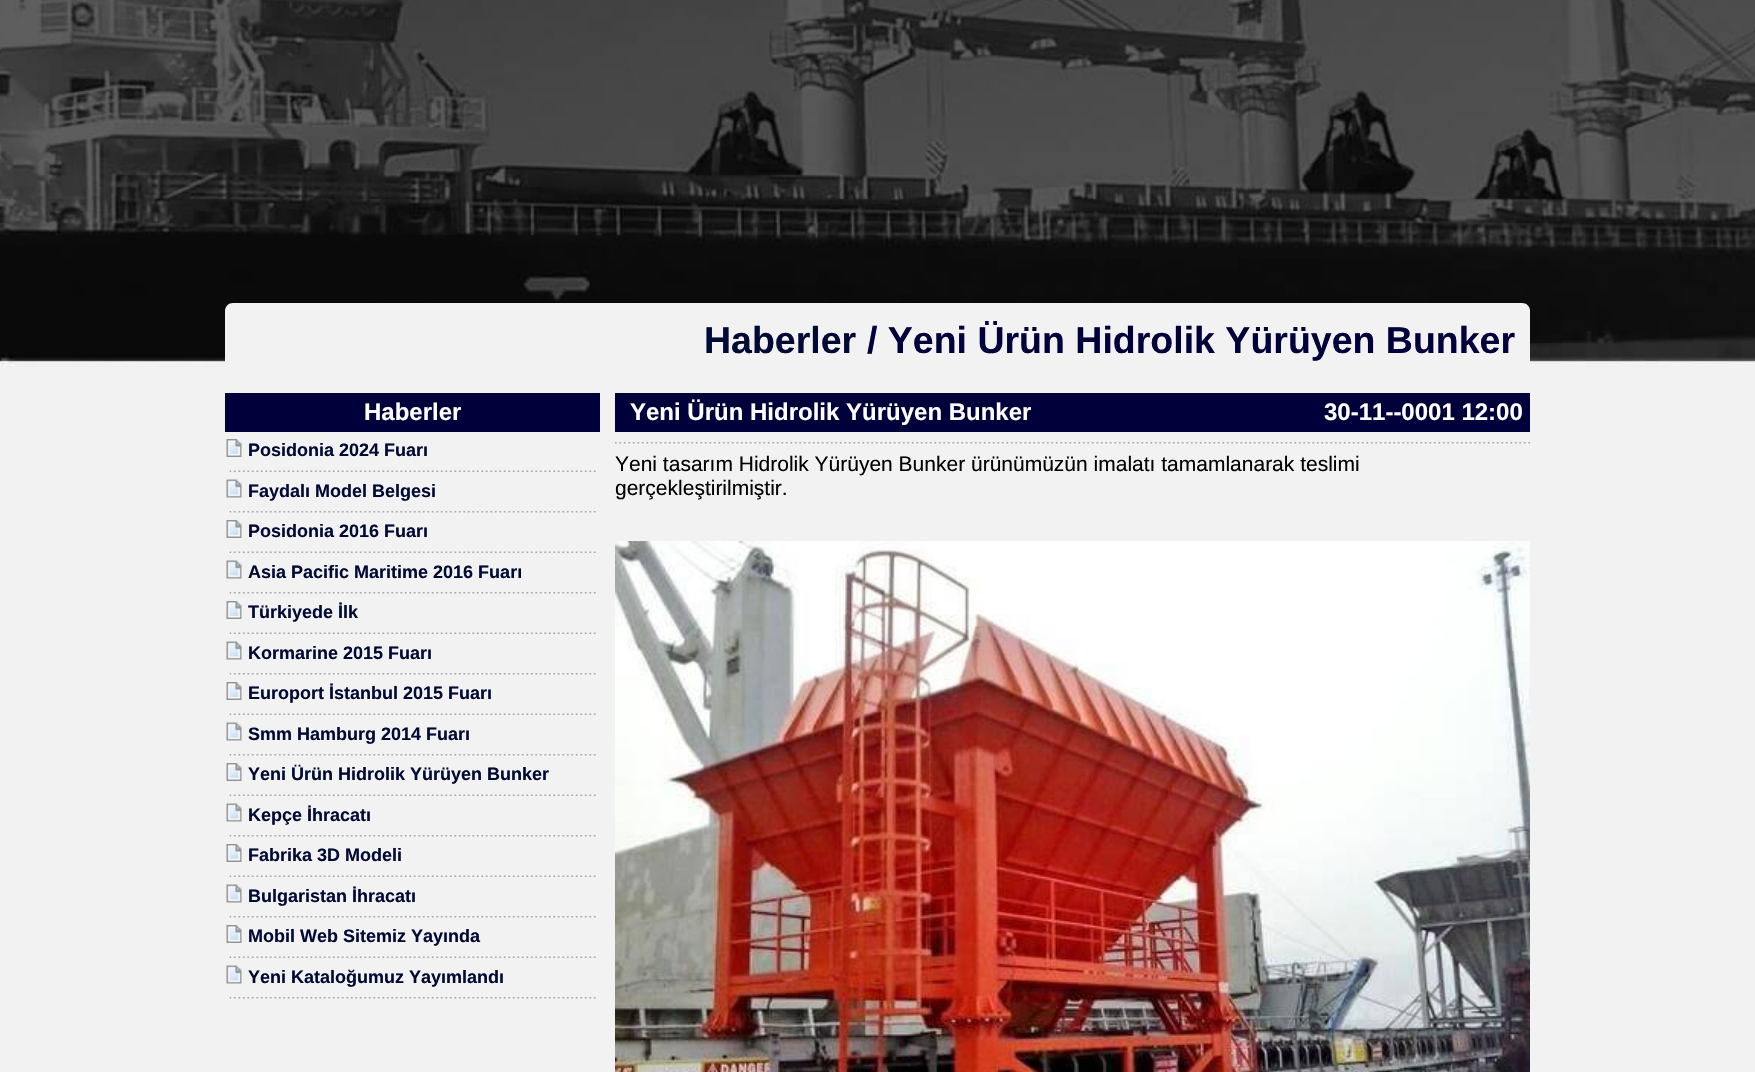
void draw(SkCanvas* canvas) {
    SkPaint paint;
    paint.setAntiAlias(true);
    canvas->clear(0xFFF2F2F2);
    canvas->drawImageRect(SkImages::DeferredFromEncodedData(SkData::MakeFromFileName("img1.png")), SkRect::MakeXYWH(0, 0, 1755, 367), SkSamplingOptions());
    paint.setColor(0xFFF2F2F2);
    canvas->drawPath(SkPathBuilder().moveTo(233, 303).lineTo(1522, 303).cubicTo(1526.5f, 303, 1530, 306.5f, 1530, 311).lineTo(1530, 378).lineTo(225, 378).lineTo(225, 311).cubicTo(225, 306.5f, 228.5f, 303, 233, 303).close().detach(), paint);
    SkFont font1(fontMgr->matchFamilyStyle("Liberation Sans", SkFontStyle::Bold()), 37.5f);
    font1.setSubpixel(true);
    paint.setColor(0xFF000A34);
    canvas->drawString("Haberler", 704, 353, font1, paint);
    paint.setColor(0xFF00003B);
    canvas->drawString("/ Yeni Ürün Hidrolik Yürüyen Bunker", 867, 353, font1, paint);
    canvas->drawRect(SkRect::MakeXYWH(225, 393, 375, 39), paint);
    SkFont font2(fontMgr->matchFamilyStyle("Liberation Sans", SkFontStyle::Bold()), 24);
    font2.setSubpixel(true);
    paint.setColor(0xFFFFFFFF);
    canvas->drawString("Haberler", 364, 420, font2, paint);
    canvas->drawImageRect(SkImages::DeferredFromEncodedData(SkData::MakeFromFileName("img2.png")), SkRect::MakeXYWH(226, 439, 16, 18), SkSamplingOptions());
    SkFont font3(fontMgr->matchFamilyStyle("Liberation Sans", SkFontStyle::Bold()), 18);
    font3.setSubpixel(true);
    paint.setColor(0xFF000A34);
    canvas->drawString("Posidonia 2024 Fuarı", 248, 456, font3, paint);
    canvas->drawImageRect(SkImages::DeferredFromEncodedData(SkData::MakeFromFileName("img3.png")), SkRect::MakeXYWH(229, 470, 367, 2), SkSamplingOptions());
    canvas->drawImageRect(SkImages::DeferredFromEncodedData(SkData::MakeFromFileName("img4.png")), SkRect::MakeXYWH(226, 479, 16, 19), SkSamplingOptions());
    canvas->drawString("Faydalı Model Belgesi", 248, 497, font3, paint);
    canvas->drawImageRect(SkImages::DeferredFromEncodedData(SkData::MakeFromFileName("img5.png")), SkRect::MakeXYWH(229, 511, 367, 2), SkSamplingOptions());
    canvas->drawImageRect(SkImages::DeferredFromEncodedData(SkData::MakeFromFileName("img2.png")), SkRect::MakeXYWH(226, 520, 16, 18), SkSamplingOptions());
    canvas->drawString("Posidonia 2016 Fuarı", 248, 537, font3, paint);
    canvas->drawImageRect(SkImages::DeferredFromEncodedData(SkData::MakeFromFileName("img3.png")), SkRect::MakeXYWH(229, 551, 367, 2), SkSamplingOptions());
    canvas->drawImageRect(SkImages::DeferredFromEncodedData(SkData::MakeFromFileName("img4.png")), SkRect::MakeXYWH(226, 560, 16, 19), SkSamplingOptions());
    canvas->drawString("Asia Pacific Maritime 2016 Fuarı", 248, 578, font3, paint);
    canvas->drawImageRect(SkImages::DeferredFromEncodedData(SkData::MakeFromFileName("img5.png")), SkRect::MakeXYWH(229, 592, 367, 2), SkSamplingOptions());
    canvas->drawImageRect(SkImages::DeferredFromEncodedData(SkData::MakeFromFileName("img2.png")), SkRect::MakeXYWH(226, 601, 16, 18), SkSamplingOptions());
    canvas->drawString("Türkiyede İlk", 248, 618, font3, paint);
    canvas->drawImageRect(SkImages::DeferredFromEncodedData(SkData::MakeFromFileName("img3.png")), SkRect::MakeXYWH(229, 632, 367, 2), SkSamplingOptions());
    canvas->drawImageRect(SkImages::DeferredFromEncodedData(SkData::MakeFromFileName("img4.png")), SkRect::MakeXYWH(226, 641, 16, 19), SkSamplingOptions());
    canvas->drawString("Kormarine 2015 Fuarı", 248, 659, font3, paint);
    canvas->drawImageRect(SkImages::DeferredFromEncodedData(SkData::MakeFromFileName("img5.png")), SkRect::MakeXYWH(229, 673, 367, 2), SkSamplingOptions());
    canvas->drawImageRect(SkImages::DeferredFromEncodedData(SkData::MakeFromFileName("img2.png")), SkRect::MakeXYWH(226, 682, 16, 18), SkSamplingOptions());
    canvas->drawString("Europort İstanbul 2015 Fuarı", 248, 699, font3, paint);
    canvas->drawImageRect(SkImages::DeferredFromEncodedData(SkData::MakeFromFileName("img3.png")), SkRect::MakeXYWH(229, 713, 367, 2), SkSamplingOptions());
    canvas->drawImageRect(SkImages::DeferredFromEncodedData(SkData::MakeFromFileName("img4.png")), SkRect::MakeXYWH(226, 722, 16, 19), SkSamplingOptions());
    canvas->drawString("Smm Hamburg 2014 Fuarı", 248, 740, font3, paint);
    canvas->drawImageRect(SkImages::DeferredFromEncodedData(SkData::MakeFromFileName("img5.png")), SkRect::MakeXYWH(229, 754, 367, 2), SkSamplingOptions());
    canvas->drawImageRect(SkImages::DeferredFromEncodedData(SkData::MakeFromFileName("img2.png")), SkRect::MakeXYWH(226, 763, 16, 18), SkSamplingOptions());
    canvas->drawString("Yeni Ürün Hidrolik Yürüyen Bunker", 248, 780, font3, paint);
    canvas->drawImageRect(SkImages::DeferredFromEncodedData(SkData::MakeFromFileName("img3.png")), SkRect::MakeXYWH(229, 794, 367, 2), SkSamplingOptions());
    canvas->drawImageRect(SkImages::DeferredFromEncodedData(SkData::MakeFromFileName("img4.png")), SkRect::MakeXYWH(226, 803, 16, 19), SkSamplingOptions());
    canvas->drawString("Kepçe İhracatı", 248, 821, font3, paint);
    canvas->drawImageRect(SkImages::DeferredFromEncodedData(SkData::MakeFromFileName("img5.png")), SkRect::MakeXYWH(229, 835, 367, 2), SkSamplingOptions());
    canvas->drawImageRect(SkImages::DeferredFromEncodedData(SkData::MakeFromFileName("img2.png")), SkRect::MakeXYWH(226, 844, 16, 18), SkSamplingOptions());
    canvas->drawString("Fabrika 3D Modeli", 248, 861, font3, paint);
    canvas->drawImageRect(SkImages::DeferredFromEncodedData(SkData::MakeFromFileName("img3.png")), SkRect::MakeXYWH(229, 875, 367, 2), SkSamplingOptions());
    canvas->drawImageRect(SkImages::DeferredFromEncodedData(SkData::MakeFromFileName("img4.png")), SkRect::MakeXYWH(226, 884, 16, 19), SkSamplingOptions());
    canvas->drawString("Bulgaristan İhracatı", 248, 902, font3, paint);
    canvas->drawImageRect(SkImages::DeferredFromEncodedData(SkData::MakeFromFileName("img5.png")), SkRect::MakeXYWH(229, 916, 367, 2), SkSamplingOptions());
    canvas->drawImageRect(SkImages::DeferredFromEncodedData(SkData::MakeFromFileName("img2.png")), SkRect::MakeXYWH(226, 925, 16, 18), SkSamplingOptions());
    canvas->drawString("Mobil Web Sitemiz Yayında", 248, 942, font3, paint);
    canvas->drawImageRect(SkImages::DeferredFromEncodedData(SkData::MakeFromFileName("img3.png")), SkRect::MakeXYWH(229, 956, 367, 2), SkSamplingOptions());
    canvas->drawImageRect(SkImages::DeferredFromEncodedData(SkData::MakeFromFileName("img4.png")), SkRect::MakeXYWH(226, 965, 16, 19), SkSamplingOptions());
    canvas->drawString("Yeni Kataloğumuz Yayımlandı", 248, 983, font3, paint);
    canvas->drawImageRect(SkImages::DeferredFromEncodedData(SkData::MakeFromFileName("img5.png")), SkRect::MakeXYWH(229, 997, 367, 2), SkSamplingOptions());
    paint.setColor(0xFF00003B);
    canvas->drawRect(SkRect::MakeXYWH(615, 393, 915, 39), paint);
    paint.setColor(0xFFFFFFFF);
    canvas->drawString("Yeni Ürün Hidrolik Yürüyen Bunker", 630, 420, font2, paint);
    canvas->drawString("30-11--0001 12:00", 1324, 420, font2, paint);
    canvas->drawImageRect(SkImages::DeferredFromEncodedData(SkData::MakeFromFileName("img6.png")), SkRect::MakeXYWH(615, 442, 915, 2), SkSamplingOptions());
    SkFont font4(fontMgr->matchFamilyStyle("Liberation Sans", SkFontStyle::Normal()), 21);
    font4.setSubpixel(true);
    paint.setColor(0xFF000000);
    canvas->drawString("Yeni tasarım Hidrolik Yürüyen Bunker ürünümüzün imalatı tamamlanarak teslimi", 615, 471, font4, paint);
    canvas->drawString("gerçekleştirilmiştir.", 615, 495, font4, paint);
    canvas->drawImageRect(SkImages::DeferredFromEncodedData(SkData::MakeFromFileName("img7.png")), SkRect::MakeXYWH(615, 541, 915, 531), SkSamplingOptions());
}
